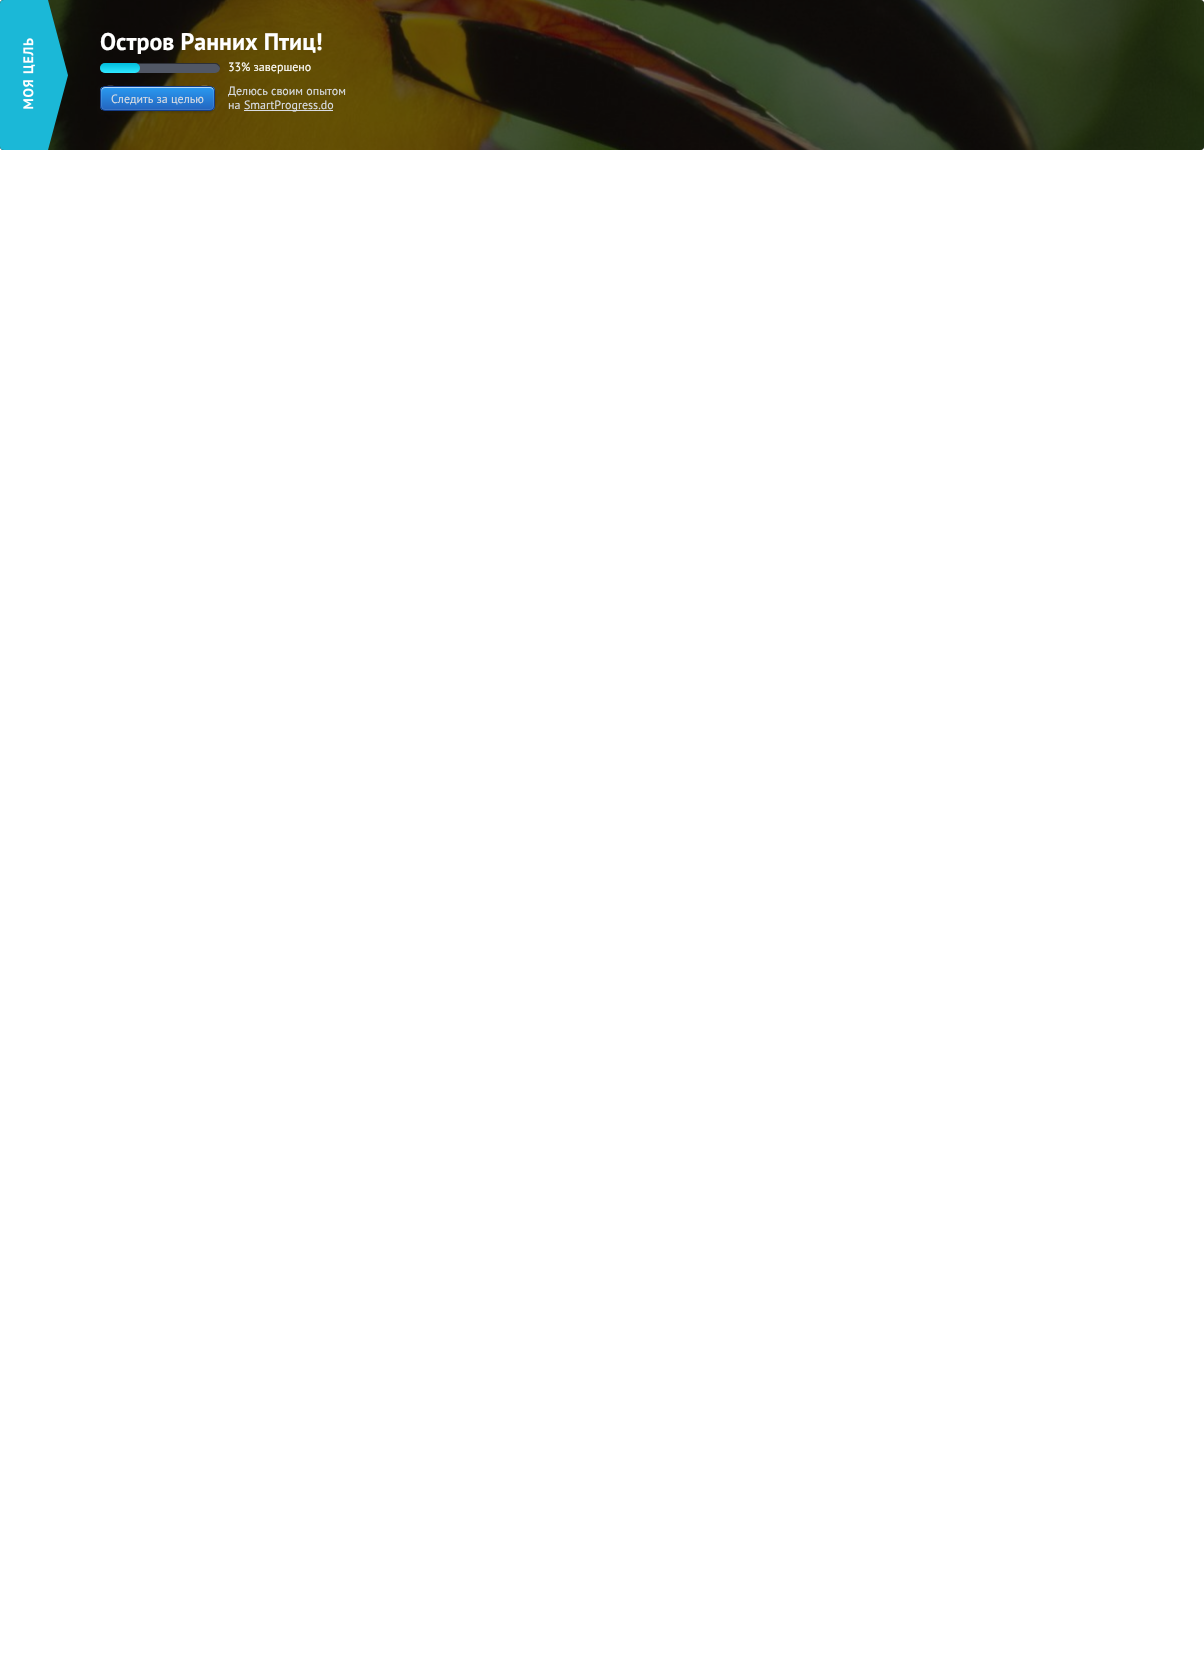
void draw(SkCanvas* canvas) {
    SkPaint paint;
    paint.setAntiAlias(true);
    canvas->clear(0xFFFFFFFF);
    paint.setColor(0xFF000000);
    canvas->drawRoundRect(SkRect::MakeXYWH(0, 0, 1204, 150), 4, 4, paint);
    paint.setColor(0x6614100D);
    canvas->drawRoundRect(SkRect::MakeXYWH(0, 0, 1204, 150), 4, 4, paint);
    canvas->drawImageRect(SkImages::DeferredFromEncodedData(SkData::MakeFromFileName("img1.png")), SkRect::MakeXYWH(0, 0, 1204, 150), SkSamplingOptions());
    canvas->drawImageRect(SkImages::DeferredFromEncodedData(SkData::MakeFromFileName("img2.png")), SkRect::MakeXYWH(0, 0, 68, 150), SkSamplingOptions());
    canvas->save();
    canvas->clipRect(SkRect::MakeXYWH(100, 30, 1064, 24));
    SkFont font1(fontMgr->matchFamilyStyle("PT Sans", SkFontStyle::Bold()), 24);
    font1.setSubpixel(true);
    paint.setColor(0xFFFFFFFF);
    canvas->drawString("Остров Ранних Птиц!", 100, 50, font1, paint);
    canvas->restore();
    paint.setColor(0xFF515765);
    canvas->drawRoundRect(SkRect::MakeXYWH(100, 63, 120, 10), 5, 5, paint);
    paint.setColor(0x73000000);
    canvas->drawPath(SkPathBuilder().moveTo(105, 64).lineTo(215, 64).cubicTo(217, 64, 219, 66, 220, 68).cubicTo(220, 65, 218, 63, 215, 63).lineTo(105, 63).cubicTo(102, 63, 100, 65, 100, 68).cubicTo(100, 66, 102, 64, 105, 64).close().detach(), paint);
    {
        const SkColor colors[] = {0xFF00BCDC, 0xFF2FE8FF};
        const float stops[] = {0, 1};
        const SkPoint ends[] = {{120, 63}, {120, 73}};
        paint.setShader(SkGradientShader::MakeLinear(ends, colors, stops, 2, SkTileMode::kClamp));
        paint.setAlpha(255);
    }
    canvas->drawRoundRect(SkRect::MakeXYWH(100, 63, 40, 10), 5, 5, paint);
    SkFont font2(fontMgr->matchFamilyStyle("PT Sans", SkFontStyle::Normal()), 12);
    font2.setSubpixel(true);
    paint.setShader(nullptr);
    paint.setColor(0xFFFFFFFF);
    canvas->drawString("33% завершено", 228, 71, font2, paint);
    paint.setColor(0x4D0E0F10);
    paint.setMaskFilter(SkMaskFilter::MakeBlur(kNormal_SkBlurStyle, 1.5f));
    canvas->drawRoundRect(SkRect::MakeXYWH(100, 87, 115, 25), 5, 5, paint);
    paint.setMaskFilter(nullptr);
    canvas->save();
    canvas->clipPath(SkPathBuilder().moveTo(105, 86).lineTo(210, 86).cubicTo(213, 86, 215, 88, 215, 91).lineTo(215, 106).cubicTo(215, 109, 213, 111, 210, 111).lineTo(105, 111).cubicTo(102, 111, 100, 109, 100, 106).lineTo(100, 91).cubicTo(100, 88, 102, 86, 105, 86).close().detach(), true);
    {
        const SkColor colors[] = {0xFF299AF1, 0xFF2465BF};
        const float stops[] = {0, 1};
        const SkPoint ends[] = {{158, 87}, {158, 110}};
        paint.setShader(SkGradientShader::MakeLinear(ends, colors, stops, 2, SkTileMode::kClamp));
        paint.setAlpha(255);
    }
    canvas->drawRect(SkRect::MakeXYWH(100, 87, 115, 23), paint);
    canvas->restore();
    paint.setStyle(SkPaint::kStroke_Style);
    paint.setStrokeWidth(1);
    paint.setShader(nullptr);
    paint.setColor(0x1AFFFFFF);
    canvas->drawRoundRect(SkRect::MakeXYWH(101.5f, 87.5f, 112, 22), 3.5f, 3.5f, paint);
    paint.setStyle(SkPaint::kFill_Style);
    paint.setColor(0x99FFFFFF);
    canvas->drawPath(SkPathBuilder().moveTo(105, 88).lineTo(210, 88).cubicTo(212, 88, 214, 90, 214, 92).cubicTo(214, 82, 196, 87, 192, 87).lineTo(122, 87).cubicTo(119, 87, 101, 82, 101, 92).cubicTo(101, 90, 103, 88, 105, 88).close().detach(), paint);
    paint.setStyle(SkPaint::kStroke_Style);
    paint.setColor(0xFF143D89);
    canvas->drawRoundRect(SkRect::MakeXYWH(100.5f, 86.5f, 114, 24), 4.5f, 4.5f, paint);
    paint.setStyle(SkPaint::kFill_Style);
    paint.setColor(0xFFD8DCE3);
    canvas->drawString("Следить за целью", 111, 103, font2, paint);
    canvas->drawString("Делюсь своим опытом", 228, 95, font2, paint);
    canvas->drawString("на", 228, 109, font2, paint);
    canvas->drawRect(SkRect::MakeXYWH(244, 110, 89, 1), paint);
    canvas->drawString("SmartProgress.do", 244, 109, font2, paint);
}
